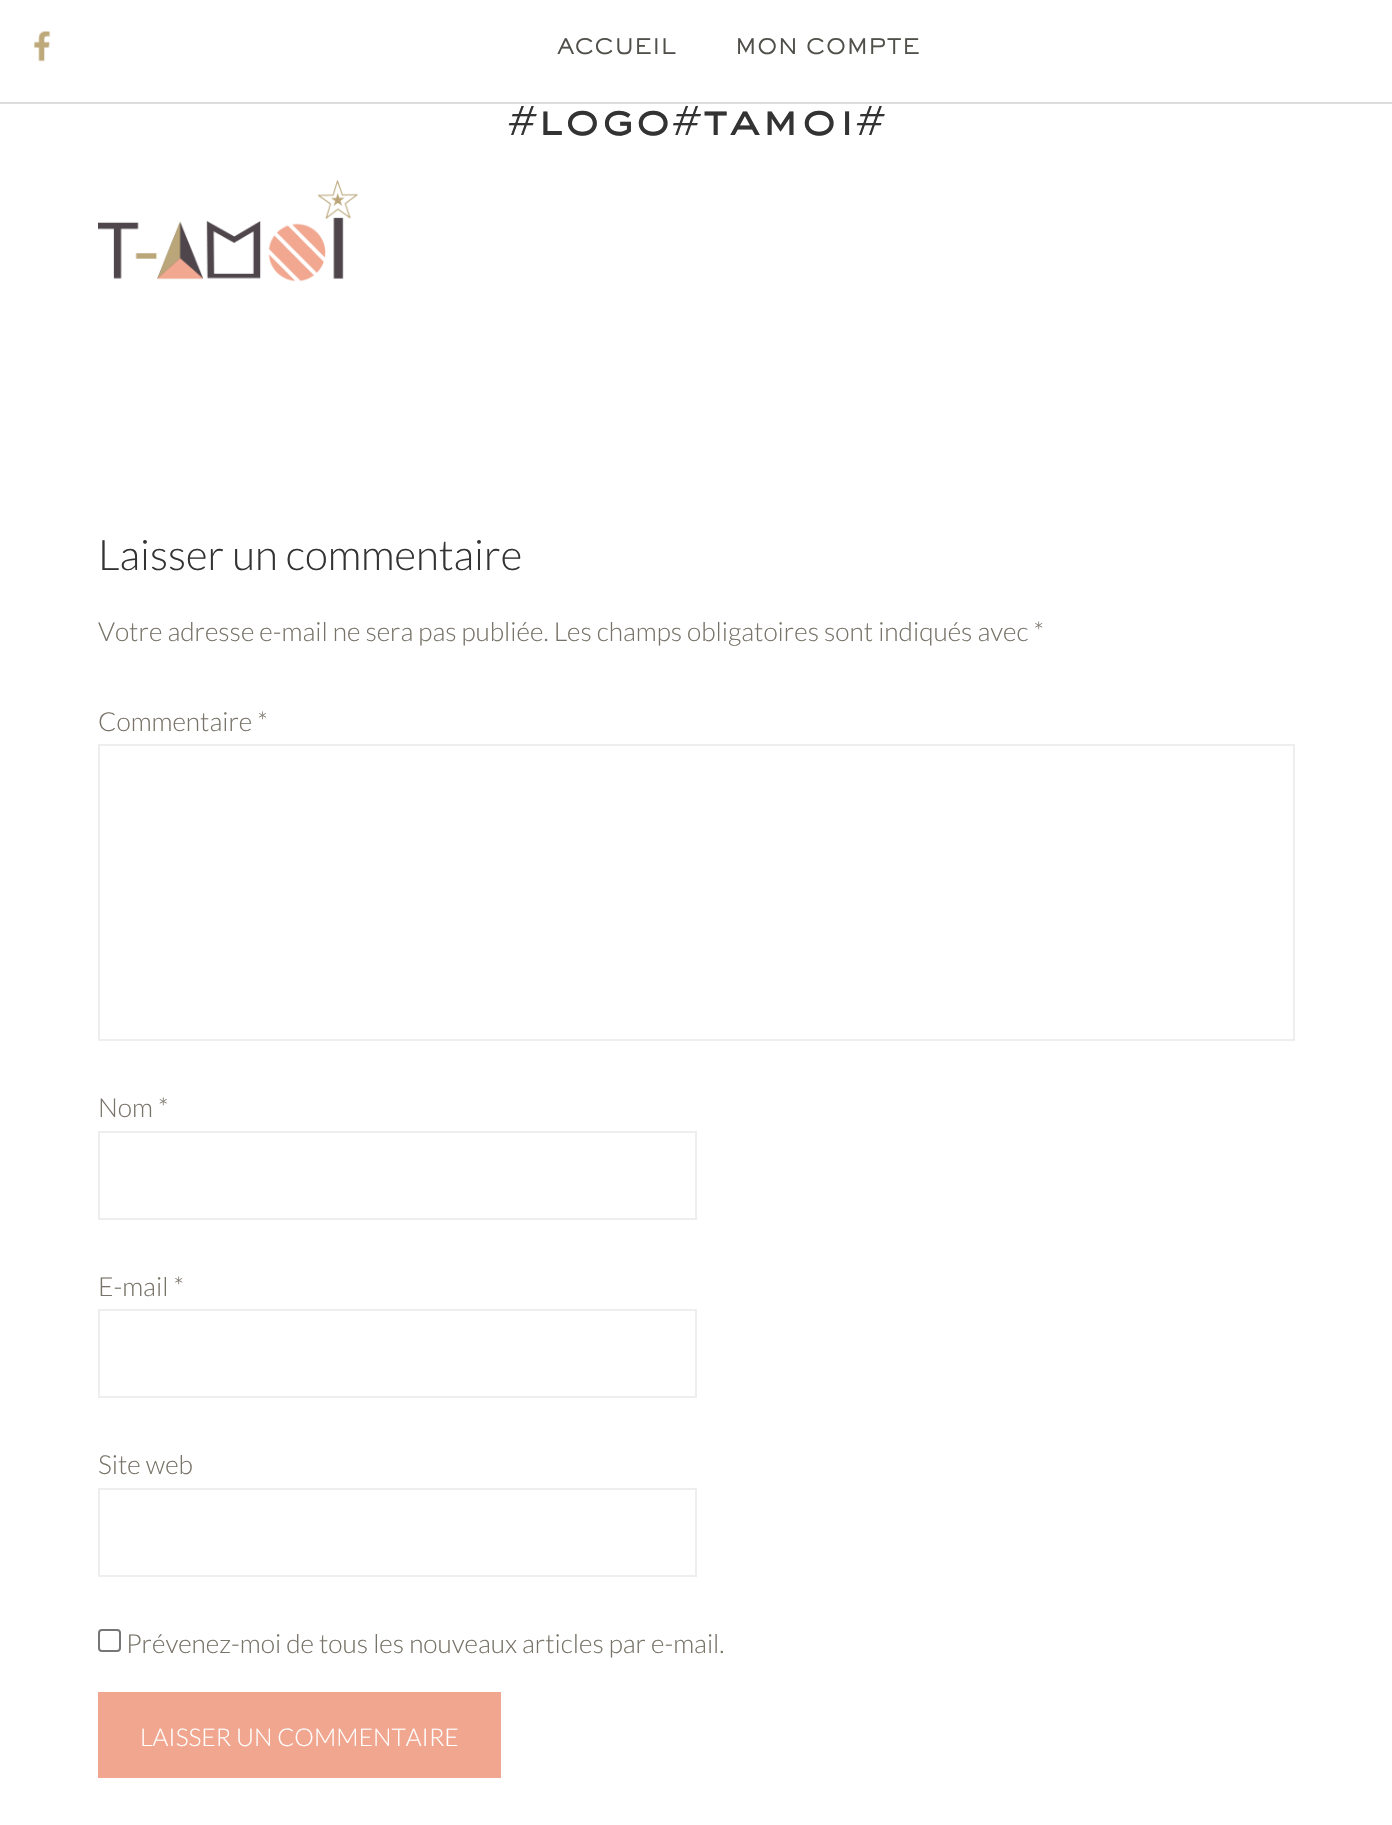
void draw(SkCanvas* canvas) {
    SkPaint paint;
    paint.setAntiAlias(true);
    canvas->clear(0xFFFFFFFF);
    paint.setColor(0xFFDDDDDD);
    canvas->drawRect(SkRect::MakeXYWH(0, 102, 1392, 2), paint);
    canvas->drawImageRect(SkImages::DeferredFromEncodedData(SkData::MakeFromFileName("img1.png")), SkRect::MakeXYWH(34, 31, 17, 31), SkSamplingOptions());
    SkFont font1(fontMgr->matchFamilyStyle("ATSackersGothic", SkFontStyle(500, SkFontStyle::kNormal_Width, SkFontStyle::kUpright_Slant)), 21);
    font1.setSubpixel(true);
    paint.setColor(0xFF514F49);
    canvas->drawString("ACCUEIL", 557, 54, font1, paint);
    canvas->drawString("MON COMPTE", 735, 54, font1, paint);
    SkFont font2(fontMgr->matchFamilyStyle("ATSackersGothic", SkFontStyle(500, SkFontStyle::kNormal_Width, SkFontStyle::kUpright_Slant)), 45.5f);
    font2.setSubpixel(true);
    paint.setColor(0xFF333333);
    canvas->drawString("#logo#tamoi#", 508, 135, font2, paint);
    canvas->drawImageRect(SkImages::DeferredFromEncodedData(SkData::MakeFromFileName("img2.png")), SkRect::MakeXYWH(98, 180, 260, 102), SkSamplingOptions());
    SkFont font3(fontMgr->matchFamilyStyle("Lato", SkFontStyle(300, SkFontStyle::kNormal_Width, SkFontStyle::kUpright_Slant)), 42);
    font3.setSubpixel(true);
    canvas->drawString("Laisser un commentaire", 98, 570, font3, paint);
    SkFont font4(fontMgr->matchFamilyStyle("Lato", SkFontStyle(300, SkFontStyle::kNormal_Width, SkFontStyle::kUpright_Slant)), 26.25f);
    font4.setSubpixel(true);
    paint.setColor(0xFF787368);
    canvas->drawString("Votre adresse e-mail ne sera pas publiée. Les champs obligatoires sont indiqués avec *", 98, 641, font4, paint);
    canvas->drawString("Commentaire *", 98, 731, font4, paint);
    paint.setStyle(SkPaint::kStroke_Style);
    paint.setStrokeWidth(2);
    paint.setColor(0xFFEEEEEE);
    canvas->drawRect(SkRect::MakeXYWH(99, 745, 1195, 295), paint);
    paint.setStyle(SkPaint::kFill_Style);
    paint.setColor(0xFF787368);
    canvas->drawString("Nom *", 98, 1117, font4, paint);
    paint.setStyle(SkPaint::kStroke_Style);
    paint.setColor(0xFFEEEEEE);
    canvas->drawRect(SkRect::MakeXYWH(99, 1132, 597, 87), paint);
    paint.setStyle(SkPaint::kFill_Style);
    paint.setColor(0xFF787368);
    canvas->drawString("E-mail *", 98, 1296, font4, paint);
    paint.setStyle(SkPaint::kStroke_Style);
    paint.setColor(0xFFEEEEEE);
    canvas->drawRect(SkRect::MakeXYWH(99, 1310, 597, 87), paint);
    paint.setStyle(SkPaint::kFill_Style);
    paint.setColor(0xFF787368);
    canvas->drawString("Site web", 98, 1474, font4, paint);
    paint.setStyle(SkPaint::kStroke_Style);
    paint.setColor(0xFFEEEEEE);
    canvas->drawRect(SkRect::MakeXYWH(99, 1489, 597, 87), paint);
    paint.setColor(0xFF767676);
    canvas->drawRoundRect(SkRect::MakeXYWH(99, 1630, 21, 21), 3, 3, paint);
    paint.setStyle(SkPaint::kFill_Style);
    paint.setColor(0xFF787368);
    canvas->drawString("Prévenez-moi de tous les nouveaux articles par e-mail.", 126, 1653, font4, paint);
    paint.setColor(0xFFF1A68F);
    canvas->drawRect(SkRect::MakeXYWH(98, 1692, 403, 86), paint);
    SkFont font5(fontMgr->matchFamilyStyle("Lato", SkFontStyle(300, SkFontStyle::kNormal_Width, SkFontStyle::kUpright_Slant)), 24.5f);
    font5.setSubpixel(true);
    paint.setColor(0xFFFFFFFF);
    canvas->drawString("LAISSER UN COMMENTAIRE", 140, 1746, font5, paint);
}
